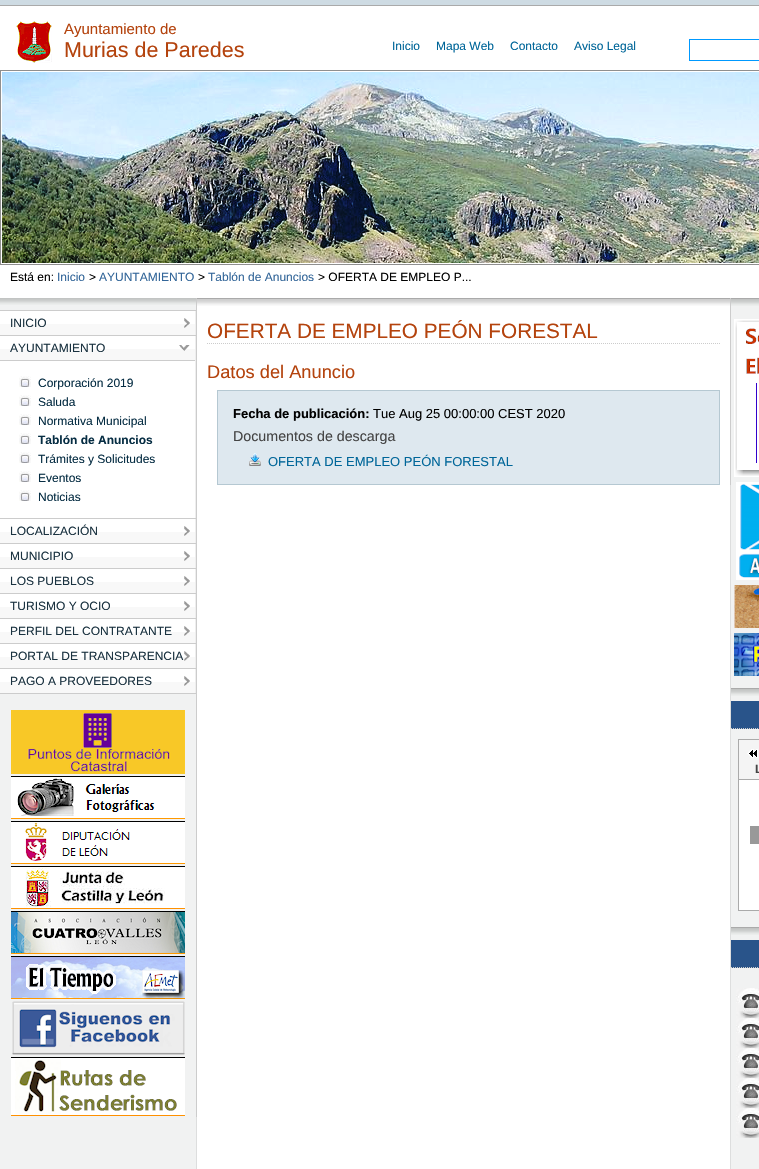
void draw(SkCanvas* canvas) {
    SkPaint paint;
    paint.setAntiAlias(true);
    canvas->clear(0xFFCEDBE3);
    paint.setColor(0xFFFFFFFF);
    canvas->drawRect(SkRect::MakeXYWH(0, 6, 759, 292), paint);
    paint.setColor(0xFFAAAAAA);
    canvas->drawRect(SkRect::MakeXYWH(0, 5, 759, 1), paint);
    canvas->drawImageRect(SkImages::DeferredFromEncodedData(SkData::MakeFromFileName("img1.png")), SkRect::MakeXYWH(16, 21, 36, 42), SkSamplingOptions());
    SkFont font1(fontMgr->matchFamilyStyle("Liberation Sans", SkFontStyle::Normal()), 15);
    font1.setSubpixel(true);
    paint.setColor(0xFFB4430D);
    canvas->drawString("Ayuntamiento de", 64, 34, font1, paint);
    SkFont font2(fontMgr->matchFamilyStyle("Liberation Sans", SkFontStyle::Normal()), 21.5f);
    font2.setSubpixel(true);
    canvas->drawString("Murias de Paredes", 64, 57, font2, paint);
    SkFont font3(fontMgr->matchFamilyStyle("Liberation Sans", SkFontStyle::Normal()), 12);
    font3.setSubpixel(true);
    paint.setColor(0xFF006699);
    canvas->drawString("Inicio", 392, 50, font3, paint);
    canvas->drawString("Mapa Web", 436, 50, font3, paint);
    canvas->drawString("Contacto", 510, 50, font3, paint);
    canvas->drawString("Aviso Legal", 574, 50, font3, paint);
    paint.setStyle(SkPaint::kStroke_Style);
    paint.setStrokeWidth(1);
    paint.setColor(0xFF0099FF);
    canvas->drawRect(SkRect::MakeXYWH(689.5f, 39.5f, 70, 21), paint);
    paint.setColor(0xFF8F8F8F);
    canvas->drawRect(SkRect::MakeXYWH(0.5f, 70.5f, 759, 194), paint);
    canvas->drawImageRect(SkImages::DeferredFromEncodedData(SkData::MakeFromFileName("img2.png")), SkRect::MakeXYWH(2, 72, 757, 191), SkSamplingOptions());
    paint.setStyle(SkPaint::kFill_Style);
    paint.setColor(0xFF000000);
    canvas->drawString("Está en:", 10, 281, font3, paint);
    paint.setColor(0xFF336699);
    canvas->drawString("Inicio", 57, 281, font3, paint);
    paint.setColor(0xFF000000);
    canvas->drawString(">", 89, 281, font3, paint);
    paint.setColor(0xFF336699);
    canvas->drawString("AYUNTAMIENTO", 99, 281, font3, paint);
    paint.setColor(0xFF000000);
    canvas->drawString(">", 198, 281, font3, paint);
    paint.setColor(0xFF336699);
    canvas->drawString("Tablón de Anuncios", 208, 281, font3, paint);
    paint.setColor(0xFF000000);
    canvas->drawString("> OFERTA DE EMPLEO P...", 318, 281, font3, paint);
    canvas->drawImageRect(SkImages::DeferredFromEncodedData(SkData::MakeFromFileName("img3.png")), SkRect::MakeXYWH(0, 306, 759, 863), SkSamplingOptions());
    paint.setColor(0xFFF1F2F2);
    canvas->drawRect(SkRect::MakeXYWH(0, 305, 196, 1), paint);
    canvas->drawImageRect(SkImages::DeferredFromEncodedData(SkData::MakeFromFileName("img4.png")), SkRect::MakeXYWH(0, 298, 196, 7), SkSamplingOptions());
    paint.setColor(0xFFCCCCCC);
    canvas->drawRect(SkRect::MakeXYWH(196, 298, 1, 819), paint);
    canvas->drawRect(SkRect::MakeXYWH(0, 310, 196, 1), paint);
    canvas->drawRect(SkRect::MakeXYWH(0, 335, 196, 1), paint);
    paint.setColor(0xFFFFFFFF);
    canvas->drawRect(SkRect::MakeXYWH(0, 311, 195, 13), paint);
    paint.setColor(0xFFF8F8F8);
    canvas->drawRect(SkRect::MakeXYWH(0, 324, 195, 11), paint);
    paint.setColor(0xFFEEEEEE);
    canvas->drawRect(SkRect::MakeXYWH(195, 311, 1, 24), paint);
    canvas->drawImageRect(SkImages::DeferredFromEncodedData(SkData::MakeFromFileName("img5.png")), SkRect::MakeXYWH(184, 318, 6, 10), SkSamplingOptions());
    paint.setColor(0xFF1A3240);
    canvas->drawString("INICIO", 10, 327, font3, paint);
    paint.setColor(0xFFCCCCCC);
    canvas->drawRect(SkRect::MakeXYWH(0, 518, 196, 1), paint);
    paint.setColor(0xFFFFFFFF);
    canvas->drawRect(SkRect::MakeXYWH(0, 336, 195, 13), paint);
    paint.setColor(0xFFF8F8F8);
    canvas->drawRect(SkRect::MakeXYWH(0, 349, 195, 11), paint);
    paint.setColor(0xFFEEEEEE);
    canvas->drawRect(SkRect::MakeXYWH(195, 336, 1, 24), paint);
    canvas->drawImageRect(SkImages::DeferredFromEncodedData(SkData::MakeFromFileName("img6.png")), SkRect::MakeXYWH(179, 345, 11, 6), SkSamplingOptions());
    paint.setColor(0xFF1A3240);
    canvas->drawString("AYUNTAMIENTO", 10, 352, font3, paint);
    paint.setColor(0xFFFFFFFF);
    canvas->drawRect(SkRect::MakeXYWH(0, 361, 195, 157), paint);
    paint.setColor(0xFFCCCCCC);
    canvas->drawRect(SkRect::MakeXYWH(0, 360, 196, 1), paint);
    paint.setColor(0xFFEEEEEE);
    canvas->drawRect(SkRect::MakeXYWH(195, 360, 1, 158), paint);
    canvas->drawImageRect(SkImages::DeferredFromEncodedData(SkData::MakeFromFileName("img7.png")), SkRect::MakeXYWH(19, 376, 12, 11), SkSamplingOptions());
    paint.setColor(0xFF062D43);
    canvas->drawString("Corporación 2019", 38, 387, font3, paint);
    canvas->drawImageRect(SkImages::DeferredFromEncodedData(SkData::MakeFromFileName("img7.png")), SkRect::MakeXYWH(19, 395, 12, 11), SkSamplingOptions());
    canvas->drawString("Saluda", 38, 406, font3, paint);
    canvas->drawImageRect(SkImages::DeferredFromEncodedData(SkData::MakeFromFileName("img7.png")), SkRect::MakeXYWH(19, 414, 12, 11), SkSamplingOptions());
    canvas->drawString("Normativa Municipal", 38, 425, font3, paint);
    canvas->drawImageRect(SkImages::DeferredFromEncodedData(SkData::MakeFromFileName("img7.png")), SkRect::MakeXYWH(19, 433, 12, 11), SkSamplingOptions());
    SkFont font4(fontMgr->matchFamilyStyle("Liberation Sans", SkFontStyle::Bold()), 12);
    font4.setSubpixel(true);
    canvas->drawString("Tablón de Anuncios", 38, 444, font4, paint);
    canvas->drawImageRect(SkImages::DeferredFromEncodedData(SkData::MakeFromFileName("img7.png")), SkRect::MakeXYWH(19, 452, 12, 11), SkSamplingOptions());
    canvas->drawString("Trámites y Solicitudes", 38, 463, font3, paint);
    canvas->drawImageRect(SkImages::DeferredFromEncodedData(SkData::MakeFromFileName("img7.png")), SkRect::MakeXYWH(19, 471, 12, 11), SkSamplingOptions());
    canvas->drawString("Eventos", 38, 482, font3, paint);
    canvas->drawImageRect(SkImages::DeferredFromEncodedData(SkData::MakeFromFileName("img7.png")), SkRect::MakeXYWH(19, 490, 12, 11), SkSamplingOptions());
    canvas->drawString("Noticias", 38, 501, font3, paint);
    paint.setColor(0xFFCCCCCC);
    canvas->drawRect(SkRect::MakeXYWH(0, 543, 196, 1), paint);
    paint.setColor(0xFFFFFFFF);
    canvas->drawRect(SkRect::MakeXYWH(0, 519, 195, 13), paint);
    paint.setColor(0xFFF8F8F8);
    canvas->drawRect(SkRect::MakeXYWH(0, 532, 195, 11), paint);
    paint.setColor(0xFFEEEEEE);
    canvas->drawRect(SkRect::MakeXYWH(195, 519, 1, 24), paint);
    canvas->drawImageRect(SkImages::DeferredFromEncodedData(SkData::MakeFromFileName("img5.png")), SkRect::MakeXYWH(184, 526, 6, 10), SkSamplingOptions());
    paint.setColor(0xFF1A3240);
    canvas->drawString("LOCALIZACIÓN", 10, 535, font3, paint);
    paint.setColor(0xFFCCCCCC);
    canvas->drawRect(SkRect::MakeXYWH(0, 568, 196, 1), paint);
    paint.setColor(0xFFFFFFFF);
    canvas->drawRect(SkRect::MakeXYWH(0, 544, 195, 13), paint);
    paint.setColor(0xFFF8F8F8);
    canvas->drawRect(SkRect::MakeXYWH(0, 557, 195, 11), paint);
    paint.setColor(0xFFEEEEEE);
    canvas->drawRect(SkRect::MakeXYWH(195, 544, 1, 24), paint);
    canvas->drawImageRect(SkImages::DeferredFromEncodedData(SkData::MakeFromFileName("img5.png")), SkRect::MakeXYWH(184, 551, 6, 10), SkSamplingOptions());
    paint.setColor(0xFF1A3240);
    canvas->drawString("MUNICIPIO", 10, 560, font3, paint);
    paint.setColor(0xFFCCCCCC);
    canvas->drawRect(SkRect::MakeXYWH(0, 593, 196, 1), paint);
    paint.setColor(0xFFFFFFFF);
    canvas->drawRect(SkRect::MakeXYWH(0, 569, 195, 13), paint);
    paint.setColor(0xFFF8F8F8);
    canvas->drawRect(SkRect::MakeXYWH(0, 582, 195, 11), paint);
    paint.setColor(0xFFEEEEEE);
    canvas->drawRect(SkRect::MakeXYWH(195, 569, 1, 24), paint);
    canvas->drawImageRect(SkImages::DeferredFromEncodedData(SkData::MakeFromFileName("img5.png")), SkRect::MakeXYWH(184, 576, 6, 10), SkSamplingOptions());
    paint.setColor(0xFF1A3240);
    canvas->drawString("LOS PUEBLOS", 10, 585, font3, paint);
    paint.setColor(0xFFCCCCCC);
    canvas->drawRect(SkRect::MakeXYWH(0, 618, 196, 1), paint);
    paint.setColor(0xFFFFFFFF);
    canvas->drawRect(SkRect::MakeXYWH(0, 594, 195, 13), paint);
    paint.setColor(0xFFF8F8F8);
    canvas->drawRect(SkRect::MakeXYWH(0, 607, 195, 11), paint);
    paint.setColor(0xFFEEEEEE);
    canvas->drawRect(SkRect::MakeXYWH(195, 594, 1, 24), paint);
    canvas->drawImageRect(SkImages::DeferredFromEncodedData(SkData::MakeFromFileName("img5.png")), SkRect::MakeXYWH(184, 601, 6, 10), SkSamplingOptions());
    paint.setColor(0xFF1A3240);
    canvas->drawString("TURISMO Y OCIO", 10, 610, font3, paint);
    paint.setColor(0xFFCCCCCC);
    canvas->drawRect(SkRect::MakeXYWH(0, 643, 196, 1), paint);
    paint.setColor(0xFFFFFFFF);
    canvas->drawRect(SkRect::MakeXYWH(0, 619, 195, 13), paint);
    paint.setColor(0xFFF8F8F8);
    canvas->drawRect(SkRect::MakeXYWH(0, 632, 195, 11), paint);
    paint.setColor(0xFFEEEEEE);
    canvas->drawRect(SkRect::MakeXYWH(195, 619, 1, 24), paint);
    canvas->drawImageRect(SkImages::DeferredFromEncodedData(SkData::MakeFromFileName("img5.png")), SkRect::MakeXYWH(184, 626, 6, 10), SkSamplingOptions());
    paint.setColor(0xFF1A3240);
    canvas->drawString("PERFIL DEL CONTRATANTE", 10, 635, font3, paint);
    paint.setColor(0xFFCCCCCC);
    canvas->drawRect(SkRect::MakeXYWH(0, 668, 196, 1), paint);
    paint.setColor(0xFFFFFFFF);
    canvas->drawRect(SkRect::MakeXYWH(0, 644, 195, 13), paint);
    paint.setColor(0xFFF8F8F8);
    canvas->drawRect(SkRect::MakeXYWH(0, 657, 195, 11), paint);
    paint.setColor(0xFFEEEEEE);
    canvas->drawRect(SkRect::MakeXYWH(195, 644, 1, 24), paint);
    canvas->drawImageRect(SkImages::DeferredFromEncodedData(SkData::MakeFromFileName("img5.png")), SkRect::MakeXYWH(184, 651, 6, 10), SkSamplingOptions());
    paint.setColor(0xFF1A3240);
    canvas->drawString("PORTAL DE TRANSPARENCIA", 10, 660, font3, paint);
    paint.setColor(0xFFCCCCCC);
    canvas->drawRect(SkRect::MakeXYWH(0, 693, 196, 1), paint);
    paint.setColor(0xFFFFFFFF);
    canvas->drawRect(SkRect::MakeXYWH(0, 669, 195, 13), paint);
    paint.setColor(0xFFF8F8F8);
    canvas->drawRect(SkRect::MakeXYWH(0, 682, 195, 11), paint);
    paint.setColor(0xFFEEEEEE);
    canvas->drawRect(SkRect::MakeXYWH(195, 669, 1, 24), paint);
    canvas->drawImageRect(SkImages::DeferredFromEncodedData(SkData::MakeFromFileName("img5.png")), SkRect::MakeXYWH(184, 676, 6, 10), SkSamplingOptions());
    paint.setColor(0xFF1A3240);
    canvas->drawString("PAGO A PROVEEDORES", 10, 685, font3, paint);
    canvas->drawImageRect(SkImages::DeferredFromEncodedData(SkData::MakeFromFileName("img8.png")), SkRect::MakeXYWH(11, 710, 174, 64), SkSamplingOptions());
    canvas->drawImageRect(SkImages::DeferredFromEncodedData(SkData::MakeFromFileName("img9.png")), SkRect::MakeXYWH(11, 776, 174, 43), SkSamplingOptions());
    canvas->drawImageRect(SkImages::DeferredFromEncodedData(SkData::MakeFromFileName("img10.png")), SkRect::MakeXYWH(11, 821, 174, 43), SkSamplingOptions());
    canvas->drawImageRect(SkImages::DeferredFromEncodedData(SkData::MakeFromFileName("img11.png")), SkRect::MakeXYWH(11, 866, 174, 43), SkSamplingOptions());
    canvas->drawImageRect(SkImages::DeferredFromEncodedData(SkData::MakeFromFileName("img12.png")), SkRect::MakeXYWH(11, 911, 174, 43), SkSamplingOptions());
    canvas->drawImageRect(SkImages::DeferredFromEncodedData(SkData::MakeFromFileName("img13.png")), SkRect::MakeXYWH(11, 956, 174, 43), SkSamplingOptions());
    canvas->drawImageRect(SkImages::DeferredFromEncodedData(SkData::MakeFromFileName("img14.png")), SkRect::MakeXYWH(12, 1001, 173, 54), SkSamplingOptions());
    canvas->drawImageRect(SkImages::DeferredFromEncodedData(SkData::MakeFromFileName("img15.png")), SkRect::MakeXYWH(11, 1057, 174, 59), SkSamplingOptions());
    canvas->drawImageRect(SkImages::DeferredFromEncodedData(SkData::MakeFromFileName("img16.png")), SkRect::MakeXYWH(197, 299, 533, 7), SkSamplingOptions());
    paint.setColor(0xFFAAAAAA);
    canvas->drawRect(SkRect::MakeXYWH(197, 298, 562, 1), paint);
    paint.setColor(0xFFCCCCCC);
    canvas->drawRect(SkRect::MakeXYWH(730, 298, 1, 187), paint);
    paint.setStyle(SkPaint::kStroke_Style);
    paint.setPathEffect(SkDashPathEffect::Make({{1, 1}}, 0));
    canvas->drawPath(SkPathBuilder().moveTo(207, 343.5f).lineTo(720, 343.5f).detach(), paint);
    paint.setPathEffect(nullptr);
    SkFont font5(fontMgr->matchFamilyStyle("Liberation Sans", SkFontStyle::Normal()), 20.75f);
    font5.setSubpixel(true);
    paint.setStyle(SkPaint::kFill_Style);
    paint.setColor(0xFFB4430D);
    canvas->drawString("OFERTA DE EMPLEO PEÓN FORESTAL", 207, 338, font5, paint);
    SkFont font6(fontMgr->matchFamilyStyle("Liberation Sans", SkFontStyle::Normal()), 18.25f);
    font6.setSubpixel(true);
    canvas->drawString("Datos del Anuncio", 207, 378, font6, paint);
    paint.setColor(0xFFDEE8EF);
    canvas->drawRect(SkRect::MakeXYWH(217.5f, 390.5f, 502, 94), paint);
    paint.setStyle(SkPaint::kStroke_Style);
    paint.setColor(0xFFB5C8D2);
    canvas->drawRect(SkRect::MakeXYWH(217.5f, 390.5f, 502, 94), paint);
    SkFont font7(fontMgr->matchFamilyStyle("Liberation Sans", SkFontStyle::Bold()), 13);
    font7.setSubpixel(true);
    paint.setStyle(SkPaint::kFill_Style);
    paint.setColor(0xFF000000);
    canvas->drawString("Fecha de publicación:", 233, 418, font7, paint);
    SkFont font8(fontMgr->matchFamilyStyle("Liberation Sans", SkFontStyle::Normal()), 13);
    font8.setSubpixel(true);
    canvas->drawString("Tue Aug 25 00:00:00 CEST 2020", 373, 418, font8, paint);
    SkFont font9(fontMgr->matchFamilyStyle("Liberation Sans", SkFontStyle::Normal()), 14.25f);
    font9.setSubpixel(true);
    paint.setColor(0xFF444444);
    canvas->drawString("Documentos de descarga", 233, 441, font9, paint);
    canvas->drawImageRect(SkImages::DeferredFromEncodedData(SkData::MakeFromFileName("img17.png")), SkRect::MakeXYWH(249, 453, 12, 13), SkSamplingOptions());
    paint.setColor(0xFF006699);
    canvas->drawString("OFERTA DE EMPLEO PEÓN FORESTAL", 268, 466, font8, paint);
    canvas->drawImageRect(SkImages::DeferredFromEncodedData(SkData::MakeFromFileName("img18.png")), SkRect::MakeXYWH(731, 299, 28, 7), SkSamplingOptions());
    canvas->drawImageRect(SkImages::DeferredFromEncodedData(SkData::MakeFromFileName("img19.png")), SkRect::MakeXYWH(734, 319, 25, 158), SkSamplingOptions());
    canvas->drawImageRect(SkImages::DeferredFromEncodedData(SkData::MakeFromFileName("img20.png")), SkRect::MakeXYWH(736, 482, 23, 98), SkSamplingOptions());
    canvas->drawImageRect(SkImages::DeferredFromEncodedData(SkData::MakeFromFileName("img21.png")), SkRect::MakeXYWH(734, 585, 25, 43), SkSamplingOptions());
    canvas->drawImageRect(SkImages::DeferredFromEncodedData(SkData::MakeFromFileName("img22.png")), SkRect::MakeXYWH(734, 633, 25, 43), SkSamplingOptions());
    canvas->drawImageRect(SkImages::DeferredFromEncodedData(SkData::MakeFromFileName("img18.png")), SkRect::MakeXYWH(731, 689, 28, 7), SkSamplingOptions());
    paint.setColor(0xFFAAAAAA);
    canvas->drawRect(SkRect::MakeXYWH(731, 688, 28, 1), paint);
    paint.setColor(0xFF29548A);
    canvas->drawRect(SkRect::MakeXYWH(731, 701, 28, 28), paint);
    paint.setStyle(SkPaint::kStroke_Style);
    paint.setColor(0xFFCCCCCC);
    paint.setPathEffect(SkDashPathEffect::Make({{1, 1}}, 0));
    canvas->drawPath(SkPathBuilder().moveTo(731, 728.5f).lineTo(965, 728.5f).detach(), paint);
    paint.setPathEffect(nullptr);
    paint.setStyle(SkPaint::kFill_Style);
    paint.setColor(0xFFFFFFFF);
    canvas->drawRect(SkRect::MakeXYWH(739, 780, 20, 130), paint);
    paint.setStyle(SkPaint::kStroke_Style);
    paint.setColor(0xFFAAAAAA);
    canvas->drawRect(SkRect::MakeXYWH(738.5f, 739.5f, 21, 171), paint);
    paint.setStyle(SkPaint::kFill_Style);
    paint.setColor(0xFFF4F4F4);
    canvas->drawRect(SkRect::MakeXYWH(739, 740, 20, 39), paint);
    paint.setColor(0xFFAAAAAA);
    canvas->drawRect(SkRect::MakeXYWH(739, 779, 20, 1), paint);
    canvas->drawImageRect(SkImages::DeferredFromEncodedData(SkData::MakeFromFileName("img23.png")), SkRect::MakeXYWH(747, 749, 11, 9), SkSamplingOptions());
    paint.setColor(0xFF444444);
    canvas->drawString("L", 755, 773, font4, paint);
    paint.setColor(0xFF999999);
    canvas->drawRect(SkRect::MakeXYWH(750, 826, 9, 18), paint);
    canvas->drawImageRect(SkImages::DeferredFromEncodedData(SkData::MakeFromFileName("img18.png")), SkRect::MakeXYWH(731, 928, 28, 7), SkSamplingOptions());
    paint.setColor(0xFFAAAAAA);
    canvas->drawRect(SkRect::MakeXYWH(731, 927, 28, 1), paint);
    paint.setColor(0xFF29548A);
    canvas->drawRect(SkRect::MakeXYWH(731, 940, 28, 28), paint);
    paint.setStyle(SkPaint::kStroke_Style);
    paint.setColor(0xFFCCCCCC);
    paint.setPathEffect(SkDashPathEffect::Make({{1, 1}}, 0));
    canvas->drawPath(SkPathBuilder().moveTo(731, 967.5f).lineTo(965, 967.5f).detach(), paint);
    paint.setPathEffect(nullptr);
    canvas->drawImageRect(SkImages::DeferredFromEncodedData(SkData::MakeFromFileName("img24.png")), SkRect::MakeXYWH(736, 988, 23, 30), SkSamplingOptions());
    canvas->drawImageRect(SkImages::DeferredFromEncodedData(SkData::MakeFromFileName("img24.png")), SkRect::MakeXYWH(736, 1018, 23, 30), SkSamplingOptions());
    canvas->drawImageRect(SkImages::DeferredFromEncodedData(SkData::MakeFromFileName("img24.png")), SkRect::MakeXYWH(736, 1048, 23, 30), SkSamplingOptions());
    canvas->drawImageRect(SkImages::DeferredFromEncodedData(SkData::MakeFromFileName("img24.png")), SkRect::MakeXYWH(736, 1078, 23, 30), SkSamplingOptions());
    canvas->drawImageRect(SkImages::DeferredFromEncodedData(SkData::MakeFromFileName("img24.png")), SkRect::MakeXYWH(736, 1108, 23, 30), SkSamplingOptions());
}
